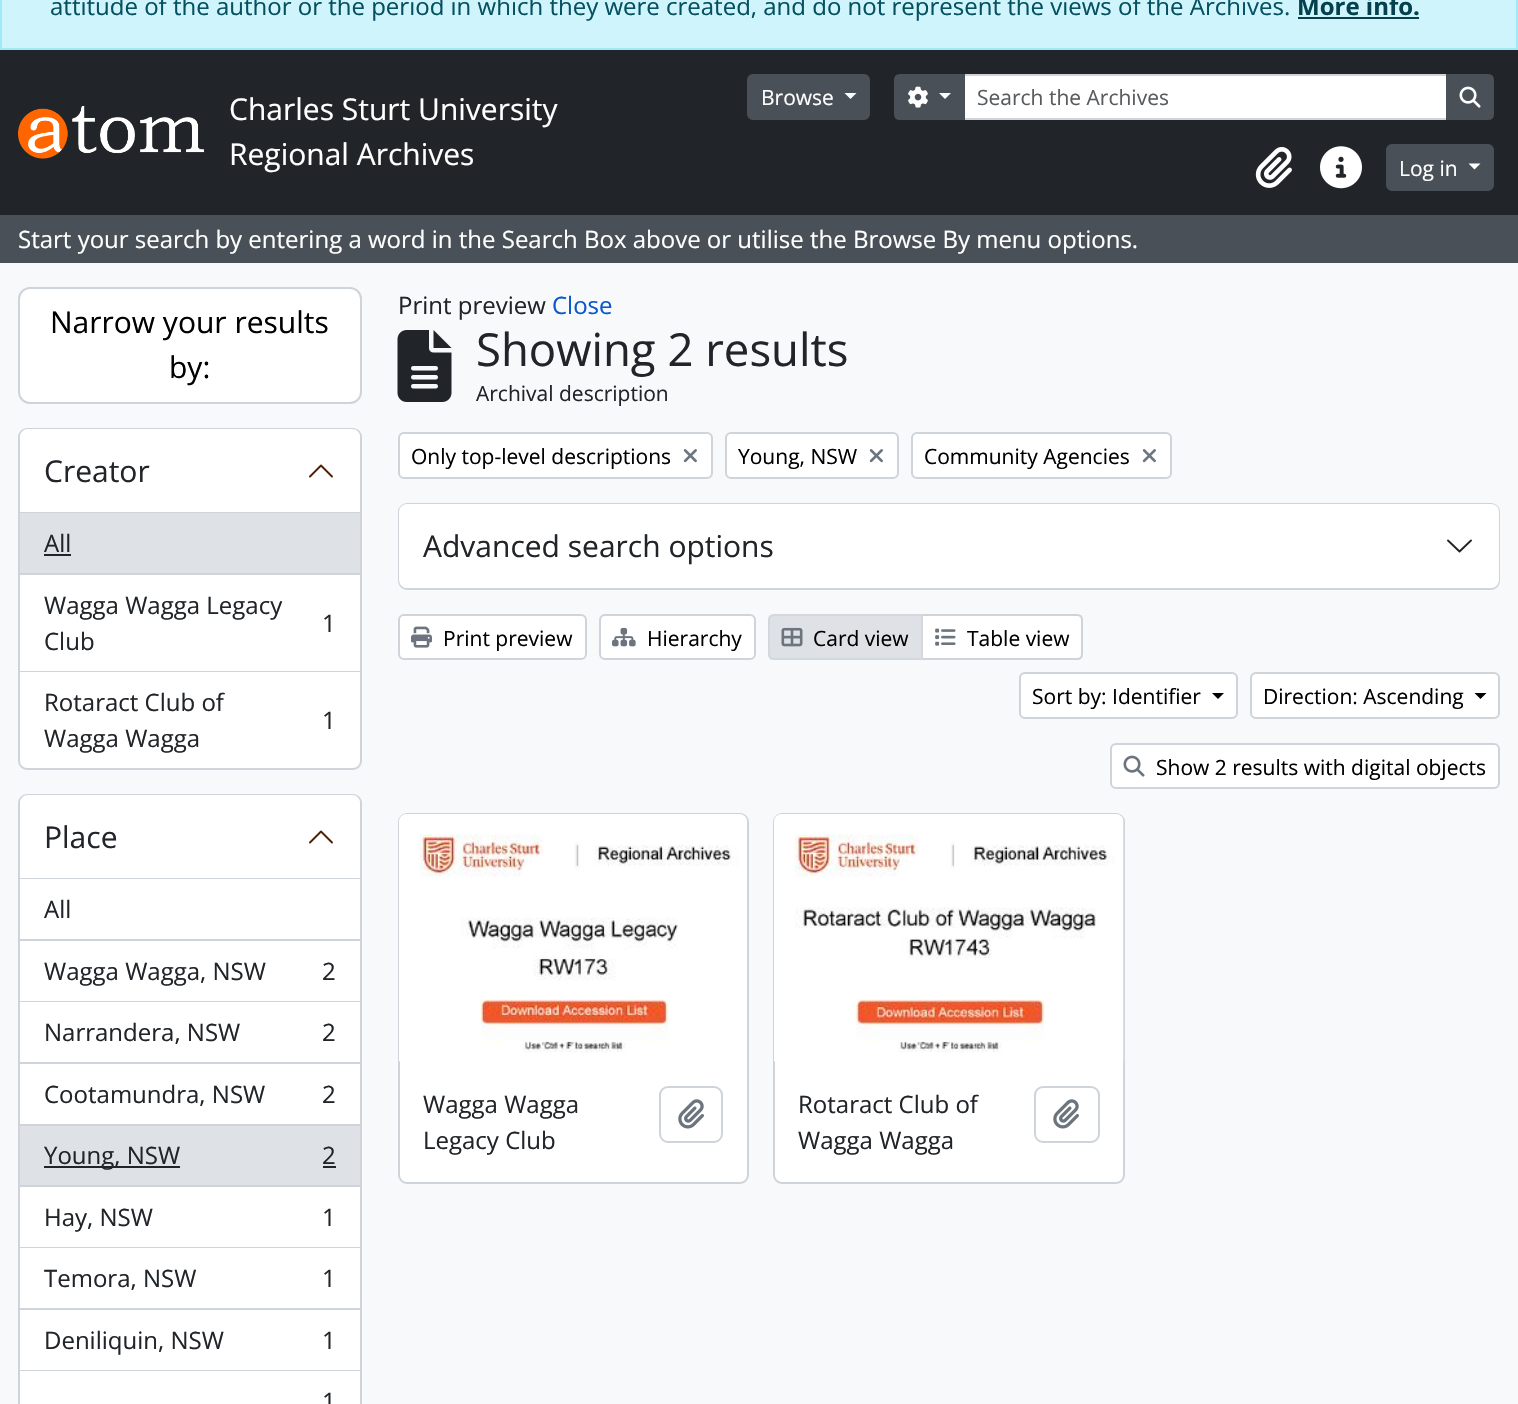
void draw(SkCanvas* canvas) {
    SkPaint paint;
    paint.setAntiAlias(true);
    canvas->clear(0xFFF8F9FA);
    paint.setColor(0xFFCFF4FC);
    canvas->drawRect(SkRect::MakeXYWH(1, -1, 1516, 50), paint);
    paint.setStyle(SkPaint::kStroke_Style);
    paint.setStrokeWidth(2);
    paint.setColor(0xFF9EEAF9);
    canvas->drawRect(SkRect::MakeXYWH(1, -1, 1516, 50), paint);
    SkFont font1(fontMgr->matchFamilyStyle("Open Sans", SkFontStyle::Normal()), 24);
    font1.setSubpixel(true);
    paint.setStyle(SkPaint::kFill_Style);
    paint.setColor(0xFF055160);
    canvas->drawString("attitude of the author or the period in which they were created, and do not represent the views of the Archives.", 50, 15, font1, paint);
    SkFont font2(fontMgr->matchFamilyStyle("Open Sans", SkFontStyle::Bold()), 24);
    font2.setSubpixel(true);
    paint.setColor(0xFF04414D);
    canvas->drawString("More info.", 1297, 15, font2, paint);
    canvas->drawRect(SkRect::MakeXYWH(1298, 17, 121, 2), paint);
    paint.setColor(0xFF212529);
    canvas->drawRect(SkRect::MakeXYWH(0, 50, 1518, 165), paint);
    canvas->drawImageRect(SkImages::DeferredFromEncodedData(SkData::MakeFromFileName("img1.png")), SkRect::MakeXYWH(18, 106, 186, 53), SkSamplingOptions());
    SkFont font3(fontMgr->matchFamilyStyle("Open Sans", SkFontStyle::Normal()), 30);
    font3.setSubpixel(true);
    paint.setColor(0xFFFFFFFF);
    canvas->drawString("Charles Sturt University", 229, 120, font3, paint);
    canvas->drawString("Regional Archives", 229, 165, font3, paint);
    paint.setColor(0xFF495057);
    canvas->drawRoundRect(SkRect::MakeXYWH(748, 75, 121, 44), 5, 5, paint);
    paint.setStyle(SkPaint::kStroke_Style);
    canvas->drawRoundRect(SkRect::MakeXYWH(748, 75, 121, 44), 5, 5, paint);
    SkFont font4(fontMgr->matchFamilyStyle("Open Sans", SkFontStyle::Normal()), 21);
    font4.setSubpixel(true);
    paint.setStyle(SkPaint::kFill_Style);
    paint.setColor(0xFFFFFFFF);
    canvas->drawString("Browse", 761, 105, font4, paint);
    canvas->drawPath(SkPathBuilder().moveTo(844.5f, 93).lineTo(856.5f, 93).lineTo(850.5f, 99).close().detach(), paint);
    canvas->drawRect(SkRect::MakeXYWH(964, 75, 483, 44), paint);
    paint.setStyle(SkPaint::kStroke_Style);
    paint.setColor(0xFFCED4DA);
    canvas->drawRect(SkRect::MakeXYWH(964, 75, 483, 44), paint);
    paint.setStyle(SkPaint::kFill_Style);
    paint.setColor(0xFF495057);
    canvas->drawPath(SkPathBuilder().moveTo(900, 75).lineTo(964, 75).lineTo(964, 119).lineTo(900, 119).cubicTo(897, 119, 895, 117, 895, 114).lineTo(895, 80).cubicTo(895, 77, 897, 75, 900, 75).close().detach(), paint);
    paint.setStyle(SkPaint::kStroke_Style);
    canvas->drawPath(SkPathBuilder().moveTo(900, 75).lineTo(964, 75).lineTo(964, 119).lineTo(900, 119).cubicTo(897, 119, 895, 117, 895, 114).lineTo(895, 80).cubicTo(895, 77, 897, 75, 900, 75).close().detach(), paint);
    canvas->drawImageRect(SkImages::DeferredFromEncodedData(SkData::MakeFromFileName("img2.png")), SkRect::MakeXYWH(908, 86, 20, 22), SkSamplingOptions());
    paint.setStyle(SkPaint::kFill_Style);
    paint.setColor(0xFFFFFFFF);
    canvas->drawPath(SkPathBuilder().moveTo(939, 93).lineTo(951, 93).lineTo(945, 99).close().detach(), paint);
    paint.setColor(0xFF595C5F);
    canvas->drawString("Search the Archives", 977, 105, font4, paint);
    paint.setColor(0xFF495057);
    canvas->drawPath(SkPathBuilder().moveTo(1447, 75).lineTo(1488, 75).cubicTo(1491, 75, 1493, 77, 1493, 80).lineTo(1493, 114).cubicTo(1493, 117, 1491, 119, 1488, 119).lineTo(1447, 119).close().detach(), paint);
    paint.setStyle(SkPaint::kStroke_Style);
    canvas->drawPath(SkPathBuilder().moveTo(1447, 75).lineTo(1488, 75).cubicTo(1491, 75, 1493, 77, 1493, 80).lineTo(1493, 114).cubicTo(1493, 117, 1491, 119, 1488, 119).lineTo(1447, 119).close().detach(), paint);
    canvas->drawImageRect(SkImages::DeferredFromEncodedData(SkData::MakeFromFileName("img3.png")), SkRect::MakeXYWH(1459, 86, 22, 22), SkSamplingOptions());
    canvas->drawImageRect(SkImages::DeferredFromEncodedData(SkData::MakeFromFileName("img4.png")), SkRect::MakeXYWH(1255, 147, 37, 41), SkSamplingOptions());
    canvas->drawImageRect(SkImages::DeferredFromEncodedData(SkData::MakeFromFileName("img5.png")), SkRect::MakeXYWH(1320, 146, 42, 43), SkSamplingOptions());
    paint.setStyle(SkPaint::kFill_Style);
    canvas->drawRoundRect(SkRect::MakeXYWH(1387, 145, 106, 45), 5, 5, paint);
    paint.setStyle(SkPaint::kStroke_Style);
    canvas->drawRoundRect(SkRect::MakeXYWH(1387, 145, 106, 45), 5, 5, paint);
    paint.setStyle(SkPaint::kFill_Style);
    paint.setColor(0xFFFFFFFF);
    canvas->drawString("Log in", 1399, 176, font4, paint);
    canvas->drawPath(SkPathBuilder().moveTo(1468.5f, 163.5f).lineTo(1480.5f, 163.5f).lineTo(1474.5f, 169.5f).close().detach(), paint);
    paint.setColor(0xFF495057);
    canvas->drawRect(SkRect::MakeXYWH(0, 215, 1518, 48), paint);
    paint.setColor(0xFFFFFFFF);
    canvas->drawString("Start your search by entering a word in the Search Box above or utilise the Browse By menu options.", 18, 248, font1, paint);
    canvas->drawRoundRect(SkRect::MakeXYWH(19, 288, 342, 115), 11, 11, paint);
    paint.setStyle(SkPaint::kStroke_Style);
    paint.setColor(0xFFCED4DA);
    canvas->drawRoundRect(SkRect::MakeXYWH(19, 288, 342, 115), 11, 11, paint);
    paint.setStyle(SkPaint::kFill_Style);
    paint.setColor(0xFF000000);
    canvas->drawString("Narrow your results", 50, 333, font3, paint);
    canvas->drawString("by:", 169, 378, font3, paint);
    paint.setColor(0xFFFFFFFF);
    canvas->drawRoundRect(SkRect::MakeXYWH(19, 429, 342, 340), 8, 8, paint);
    paint.setStyle(SkPaint::kStroke_Style);
    paint.setColor(0xFFCED4DA);
    canvas->drawRoundRect(SkRect::MakeXYWH(19, 429, 342, 340), 8, 8, paint);
    paint.setStyle(SkPaint::kFill_Style);
    paint.setColor(0xFFFFFFFF);
    canvas->drawPath(SkPathBuilder().moveTo(28, 429).lineTo(352, 429).cubicTo(356.5f, 429, 360, 432.5f, 360, 437).lineTo(360, 513).lineTo(20, 513).lineTo(20, 437).cubicTo(20, 432.5f, 23.5f, 429, 28, 429).close().detach(), paint);
    paint.setColor(0xFFCED4DA);
    canvas->drawRect(SkRect::MakeXYWH(20, 512, 340, 1), paint);
    paint.setColor(0xFF212529);
    canvas->drawString("Creator", 44, 482, font3, paint);
    paint.setStyle(SkPaint::kStroke_Style);
    paint.setStrokeWidth(1.9f);
    paint.setStrokeCap(SkPaint::kRound_Cap);
    paint.setStrokeJoin(SkPaint::kRound_Join);
    paint.setColor(0xFF4E1F00);
    canvas->drawPath(SkPathBuilder().moveTo(332, 476.5f).lineTo(321, 465.5f).lineTo(310, 476.5f).detach(), paint);
    paint.setStyle(SkPaint::kFill_Style);
    paint.setColor(0xFFDEE2E6);
    canvas->drawRect(SkRect::MakeXYWH(20, 513, 340, 60), paint);
    paint.setColor(0xFFCED4DA);
    canvas->drawRect(SkRect::MakeXYWH(20, 573, 340, 2), paint);
    paint.setColor(0xFF212529);
    canvas->drawString("All", 44, 552, font1, paint);
    canvas->drawRect(SkRect::MakeXYWH(44, 554, 27, 2), paint);
    paint.setColor(0xFFCED4DA);
    canvas->drawRect(SkRect::MakeXYWH(20, 671, 340, 1), paint);
    paint.setColor(0xFF212529);
    canvas->drawString("Wagga Wagga Legacy", 44, 614, font1, paint);
    canvas->drawString("1", 322, 632, font1, paint);
    canvas->drawString("Club", 44, 650, font1, paint);
    canvas->drawString("Rotaract Club of", 44, 711, font1, paint);
    canvas->drawString("1", 322, 729, font1, paint);
    canvas->drawString("Wagga Wagga", 44, 747, font1, paint);
    paint.setColor(0xFFFFFFFF);
    canvas->drawRoundRect(SkRect::MakeXYWH(19, 795, 342, 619), 8, 8, paint);
    paint.setStyle(SkPaint::kStroke_Style);
    paint.setStrokeWidth(2);
    paint.setStrokeCap(SkPaint::kButt_Cap);
    paint.setStrokeJoin(SkPaint::kMiter_Join);
    paint.setColor(0xFFCED4DA);
    canvas->drawRoundRect(SkRect::MakeXYWH(19, 795, 342, 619), 8, 8, paint);
    paint.setStyle(SkPaint::kFill_Style);
    paint.setColor(0xFFFFFFFF);
    canvas->drawPath(SkPathBuilder().moveTo(28, 795).lineTo(352, 795).cubicTo(356.5f, 795, 360, 798.5f, 360, 803).lineTo(360, 879).lineTo(20, 879).lineTo(20, 803).cubicTo(20, 798.5f, 23.5f, 795, 28, 795).close().detach(), paint);
    paint.setColor(0xFFCED4DA);
    canvas->drawRect(SkRect::MakeXYWH(20, 878, 340, 1), paint);
    paint.setColor(0xFF212529);
    canvas->drawString("Place", 44, 848, font3, paint);
    paint.setStyle(SkPaint::kStroke_Style);
    paint.setStrokeWidth(1.9f);
    paint.setStrokeCap(SkPaint::kRound_Cap);
    paint.setStrokeJoin(SkPaint::kRound_Join);
    paint.setColor(0xFF4E1F00);
    canvas->drawPath(SkPathBuilder().moveTo(332, 842.5f).lineTo(321, 831.5f).lineTo(310, 842.5f).detach(), paint);
    paint.setStyle(SkPaint::kFill_Style);
    paint.setColor(0xFFCED4DA);
    canvas->drawRect(SkRect::MakeXYWH(20, 939, 340, 2), paint);
    paint.setColor(0xFF212529);
    canvas->drawString("All", 44, 918, font1, paint);
    paint.setColor(0xFFCED4DA);
    canvas->drawRect(SkRect::MakeXYWH(20, 1001, 340, 1), paint);
    paint.setColor(0xFF212529);
    canvas->drawString("Wagga Wagga, NSW", 44, 980, font1, paint);
    canvas->drawString("2", 322, 980, font1, paint);
    paint.setColor(0xFFCED4DA);
    canvas->drawRect(SkRect::MakeXYWH(20, 1062, 340, 2), paint);
    paint.setColor(0xFF212529);
    canvas->drawString("Narrandera, NSW", 44, 1041, font1, paint);
    canvas->drawString("2", 322, 1041, font1, paint);
    canvas->drawString("Cootamundra, NSW", 44, 1103, font1, paint);
    canvas->drawString("2", 322, 1103, font1, paint);
    paint.setColor(0xFFDEE2E6);
    canvas->drawRect(SkRect::MakeXYWH(20, 1126, 340, 59), paint);
    paint.setColor(0xFFCED4DA);
    canvas->drawRect(SkRect::MakeXYWH(20, 1124, 340, 2), paint);
    canvas->drawRect(SkRect::MakeXYWH(20, 1185, 340, 2), paint);
    paint.setColor(0xFF212529);
    canvas->drawRect(SkRect::MakeXYWH(44, 1166, 136, 2), paint);
    canvas->drawString("Young, NSW", 44, 1164, font1, paint);
    canvas->drawString("2", 322, 1164, font1, paint);
    canvas->drawRect(SkRect::MakeXYWH(323, 1166, 13, 2), paint);
    paint.setColor(0xFFCED4DA);
    canvas->drawRect(SkRect::MakeXYWH(20, 1247, 340, 1), paint);
    paint.setColor(0xFF212529);
    canvas->drawString("Hay, NSW", 44, 1226, font1, paint);
    canvas->drawString("1", 322, 1226, font1, paint);
    paint.setColor(0xFFCED4DA);
    canvas->drawRect(SkRect::MakeXYWH(20, 1308, 340, 2), paint);
    paint.setColor(0xFF212529);
    canvas->drawString("Temora, NSW", 44, 1287, font1, paint);
    canvas->drawString("1", 322, 1287, font1, paint);
    paint.setColor(0xFFCED4DA);
    canvas->drawRect(SkRect::MakeXYWH(20, 1370, 340, 1), paint);
    paint.setColor(0xFF212529);
    canvas->drawString("Deniliquin, NSW", 44, 1349, font1, paint);
    canvas->drawString("1", 322, 1349, font1, paint);
    canvas->drawString("1", 322, 1410, font1, paint);
    canvas->drawString("Print preview", 398, 314, font1, paint);
    paint.setColor(0xFF0A58CA);
    canvas->drawString("Close", 552, 314, font1, paint);
    canvas->drawImageRect(SkImages::DeferredFromEncodedData(SkData::MakeFromFileName("img6.png")), SkRect::MakeXYWH(397, 330, 55, 72), SkSamplingOptions());
    SkFont font5(fontMgr->matchFamilyStyle("Open Sans", SkFontStyle::Normal()), 45.5f);
    font5.setSubpixel(true);
    paint.setColor(0xFF212529);
    canvas->drawString("Showing 2 results", 476, 366, font5, paint);
    canvas->drawString("Archival description", 476, 401, font4, paint);
    paint.setColor(0xFFFFFFFF);
    canvas->drawRoundRect(SkRect::MakeXYWH(399, 433, 313, 45), 5, 5, paint);
    paint.setStyle(SkPaint::kStroke_Style);
    paint.setStrokeWidth(2);
    paint.setStrokeCap(SkPaint::kButt_Cap);
    paint.setStrokeJoin(SkPaint::kMiter_Join);
    paint.setColor(0xFFCED4DA);
    canvas->drawRoundRect(SkRect::MakeXYWH(399, 433, 313, 45), 5, 5, paint);
    paint.setStyle(SkPaint::kFill_Style);
    paint.setColor(0xFF000000);
    canvas->drawString("Only top-level descriptions", 411, 464, font4, paint);
    canvas->drawImageRect(SkImages::DeferredFromEncodedData(SkData::MakeFromFileName("img7.png")), SkRect::MakeXYWH(683, 449, 14, 14), SkSamplingOptions());
    paint.setColor(0xFFFFFFFF);
    canvas->drawRoundRect(SkRect::MakeXYWH(726, 433, 172, 45), 5, 5, paint);
    paint.setStyle(SkPaint::kStroke_Style);
    paint.setColor(0xFFCED4DA);
    canvas->drawRoundRect(SkRect::MakeXYWH(726, 433, 172, 45), 5, 5, paint);
    paint.setStyle(SkPaint::kFill_Style);
    paint.setColor(0xFF000000);
    canvas->drawString("Young, NSW", 738, 464, font4, paint);
    canvas->drawImageRect(SkImages::DeferredFromEncodedData(SkData::MakeFromFileName("img7.png")), SkRect::MakeXYWH(869, 449, 14, 14), SkSamplingOptions());
    paint.setColor(0xFFFFFFFF);
    canvas->drawRoundRect(SkRect::MakeXYWH(912, 433, 259, 45), 5, 5, paint);
    paint.setStyle(SkPaint::kStroke_Style);
    paint.setColor(0xFFCED4DA);
    canvas->drawRoundRect(SkRect::MakeXYWH(912, 433, 259, 45), 5, 5, paint);
    paint.setStyle(SkPaint::kFill_Style);
    paint.setColor(0xFF000000);
    canvas->drawString("Community Agencies", 924, 464, font4, paint);
    canvas->drawImageRect(SkImages::DeferredFromEncodedData(SkData::MakeFromFileName("img7.png")), SkRect::MakeXYWH(1142, 449, 14, 14), SkSamplingOptions());
    paint.setStyle(SkPaint::kStroke_Style);
    paint.setColor(0xFFCED4DA);
    canvas->drawRoundRect(SkRect::MakeXYWH(399, 504, 1100, 85), 8, 8, paint);
    paint.setStyle(SkPaint::kFill_Style);
    paint.setColor(0xFFFFFFFF);
    canvas->drawRoundRect(SkRect::MakeXYWH(399, 504, 1100, 84), 8, 8, paint);
    paint.setColor(0xFF212529);
    canvas->drawString("Advanced search options", 423, 557, font3, paint);
    paint.setStyle(SkPaint::kStroke_Style);
    paint.setStrokeWidth(1.9f);
    paint.setStrokeCap(SkPaint::kRound_Cap);
    paint.setStrokeJoin(SkPaint::kRound_Join);
    canvas->drawPath(SkPathBuilder().moveTo(1448, 540.5f).lineTo(1459.5f, 551.5f).lineTo(1471, 540.5f).detach(), paint);
    paint.setStyle(SkPaint::kFill_Style);
    paint.setColor(0xFFFFFFFF);
    canvas->drawRoundRect(SkRect::MakeXYWH(399, 615, 187, 44), 5, 5, paint);
    paint.setStyle(SkPaint::kStroke_Style);
    paint.setStrokeWidth(2);
    paint.setStrokeCap(SkPaint::kButt_Cap);
    paint.setStrokeJoin(SkPaint::kMiter_Join);
    paint.setColor(0xFFCED4DA);
    canvas->drawRoundRect(SkRect::MakeXYWH(399, 615, 187, 44), 5, 5, paint);
    canvas->drawImageRect(SkImages::DeferredFromEncodedData(SkData::MakeFromFileName("img8.png")), SkRect::MakeXYWH(411, 626, 21, 22), SkSamplingOptions());
    paint.setStyle(SkPaint::kFill_Style);
    paint.setColor(0xFF000000);
    canvas->drawString("Print preview", 443, 646, font4, paint);
    paint.setColor(0xFFFFFFFF);
    canvas->drawRoundRect(SkRect::MakeXYWH(600, 615, 155, 44), 5, 5, paint);
    paint.setStyle(SkPaint::kStroke_Style);
    paint.setColor(0xFFCED4DA);
    canvas->drawRoundRect(SkRect::MakeXYWH(600, 615, 155, 44), 5, 5, paint);
    canvas->drawImageRect(SkImages::DeferredFromEncodedData(SkData::MakeFromFileName("img9.png")), SkRect::MakeXYWH(612, 627, 24, 20), SkSamplingOptions());
    paint.setStyle(SkPaint::kFill_Style);
    paint.setColor(0xFF000000);
    canvas->drawString("Hierarchy", 647, 646, font4, paint);
    paint.setColor(0xFFFFFFFF);
    canvas->drawPath(SkPathBuilder().moveTo(922, 615).lineTo(1077, 615).cubicTo(1080, 615, 1082, 617, 1082, 620).lineTo(1082, 654).cubicTo(1082, 657, 1080, 659, 1077, 659).lineTo(922, 659).close().detach(), paint);
    paint.setStyle(SkPaint::kStroke_Style);
    paint.setColor(0xFFCED4DA);
    canvas->drawPath(SkPathBuilder().moveTo(922, 615).lineTo(1077, 615).cubicTo(1080, 615, 1082, 617, 1082, 620).lineTo(1082, 654).cubicTo(1082, 657, 1080, 659, 1077, 659).lineTo(922, 659).close().detach(), paint);
    paint.setStyle(SkPaint::kFill_Style);
    paint.setColor(0xFFDEE2E6);
    canvas->drawPath(SkPathBuilder().moveTo(774, 615).lineTo(922, 615).lineTo(922, 659).lineTo(774, 659).cubicTo(771, 659, 769, 657, 769, 654).lineTo(769, 620).cubicTo(769, 617, 771, 615, 774, 615).close().detach(), paint);
    paint.setStyle(SkPaint::kStroke_Style);
    paint.setColor(0xFFD3D8DE);
    canvas->drawPath(SkPathBuilder().moveTo(774, 615).lineTo(922, 615).lineTo(922, 659).lineTo(774, 659).cubicTo(771, 659, 769, 657, 769, 654).lineTo(769, 620).cubicTo(769, 617, 771, 615, 774, 615).close().detach(), paint);
    canvas->drawImageRect(SkImages::DeferredFromEncodedData(SkData::MakeFromFileName("img10.png")), SkRect::MakeXYWH(781, 627, 22, 20), SkSamplingOptions());
    paint.setStyle(SkPaint::kFill_Style);
    paint.setColor(0xFF000000);
    canvas->drawString("Card view", 813, 646, font4, paint);
    canvas->drawImageRect(SkImages::DeferredFromEncodedData(SkData::MakeFromFileName("img11.png")), SkRect::MakeXYWH(935, 628, 21, 18), SkSamplingOptions());
    canvas->drawString("Table view", 967, 646, font4, paint);
    paint.setColor(0xFFFFFFFF);
    canvas->drawRoundRect(SkRect::MakeXYWH(1020, 673, 217, 45), 5, 5, paint);
    paint.setStyle(SkPaint::kStroke_Style);
    paint.setColor(0xFFCED4DA);
    canvas->drawRoundRect(SkRect::MakeXYWH(1020, 673, 217, 45), 5, 5, paint);
    paint.setStyle(SkPaint::kFill_Style);
    paint.setColor(0xFF000000);
    canvas->drawString("Sort by: Identifier", 1032, 704, font4, paint);
    canvas->drawPath(SkPathBuilder().moveTo(1212, 693).lineTo(1224, 693).lineTo(1218, 699).close().detach(), paint);
    paint.setColor(0xFFFFFFFF);
    canvas->drawRoundRect(SkRect::MakeXYWH(1251, 673, 248, 45), 5, 5, paint);
    paint.setStyle(SkPaint::kStroke_Style);
    paint.setColor(0xFFCED4DA);
    canvas->drawRoundRect(SkRect::MakeXYWH(1251, 673, 248, 45), 5, 5, paint);
    paint.setStyle(SkPaint::kFill_Style);
    paint.setColor(0xFF000000);
    canvas->drawString("Direction: Ascending", 1263, 704, font4, paint);
    canvas->drawPath(SkPathBuilder().moveTo(1474.5f, 693).lineTo(1486.5f, 693).lineTo(1480.5f, 699).close().detach(), paint);
    paint.setColor(0xFFFFFFFF);
    canvas->drawRoundRect(SkRect::MakeXYWH(1111, 744, 388, 44), 5, 5, paint);
    paint.setStyle(SkPaint::kStroke_Style);
    paint.setColor(0xFFCED4DA);
    canvas->drawRoundRect(SkRect::MakeXYWH(1111, 744, 388, 44), 5, 5, paint);
    canvas->drawImageRect(SkImages::DeferredFromEncodedData(SkData::MakeFromFileName("img12.png")), SkRect::MakeXYWH(1123, 755, 22, 22), SkSamplingOptions());
    paint.setStyle(SkPaint::kFill_Style);
    paint.setColor(0xFF000000);
    canvas->drawString("Show 2 results with digital objects", 1156, 775, font4, paint);
    paint.setColor(0xFFFFFFFF);
    canvas->drawRoundRect(SkRect::MakeXYWH(399, 814, 349, 369), 8, 8, paint);
    paint.setStyle(SkPaint::kStroke_Style);
    paint.setColor(0xFFCED4DA);
    canvas->drawRoundRect(SkRect::MakeXYWH(399, 814, 349, 369), 8, 8, paint);
    canvas->drawImageRect(SkImages::DeferredFromEncodedData(SkData::MakeFromFileName("img13.png")), SkRect::MakeXYWH(399, 814, 348, 248), SkSamplingOptions());
    paint.setStyle(SkPaint::kFill_Style);
    paint.setColor(0xFF212529);
    canvas->drawString("Wagga Wagga", 423, 1113, font1, paint);
    canvas->drawString("Legacy Club", 423, 1149, font1, paint);
    paint.setStyle(SkPaint::kStroke_Style);
    paint.setColor(0xFFCED4DA);
    canvas->drawRoundRect(SkRect::MakeXYWH(660, 1087, 62, 55), 8, 8, paint);
    canvas->drawImageRect(SkImages::DeferredFromEncodedData(SkData::MakeFromFileName("img14.png")), SkRect::MakeXYWH(678, 1099, 26, 30), SkSamplingOptions());
    paint.setStyle(SkPaint::kFill_Style);
    paint.setColor(0xFFFFFFFF);
    canvas->drawRoundRect(SkRect::MakeXYWH(774, 814, 350, 369), 8, 8, paint);
    paint.setStyle(SkPaint::kStroke_Style);
    paint.setColor(0xFFCED4DA);
    canvas->drawRoundRect(SkRect::MakeXYWH(774, 814, 350, 369), 8, 8, paint);
    canvas->drawImageRect(SkImages::DeferredFromEncodedData(SkData::MakeFromFileName("img15.png")), SkRect::MakeXYWH(774, 814, 350, 248), SkSamplingOptions());
    paint.setStyle(SkPaint::kFill_Style);
    paint.setColor(0xFF212529);
    canvas->drawString("Rotaract Club of", 798, 1113, font1, paint);
    canvas->drawString("Wagga Wagga", 798, 1149, font1, paint);
    paint.setStyle(SkPaint::kStroke_Style);
    paint.setColor(0xFFCED4DA);
    canvas->drawRoundRect(SkRect::MakeXYWH(1035, 1087, 64, 55), 8, 8, paint);
    canvas->drawImageRect(SkImages::DeferredFromEncodedData(SkData::MakeFromFileName("img14.png")), SkRect::MakeXYWH(1053, 1099, 26, 30), SkSamplingOptions());
}
